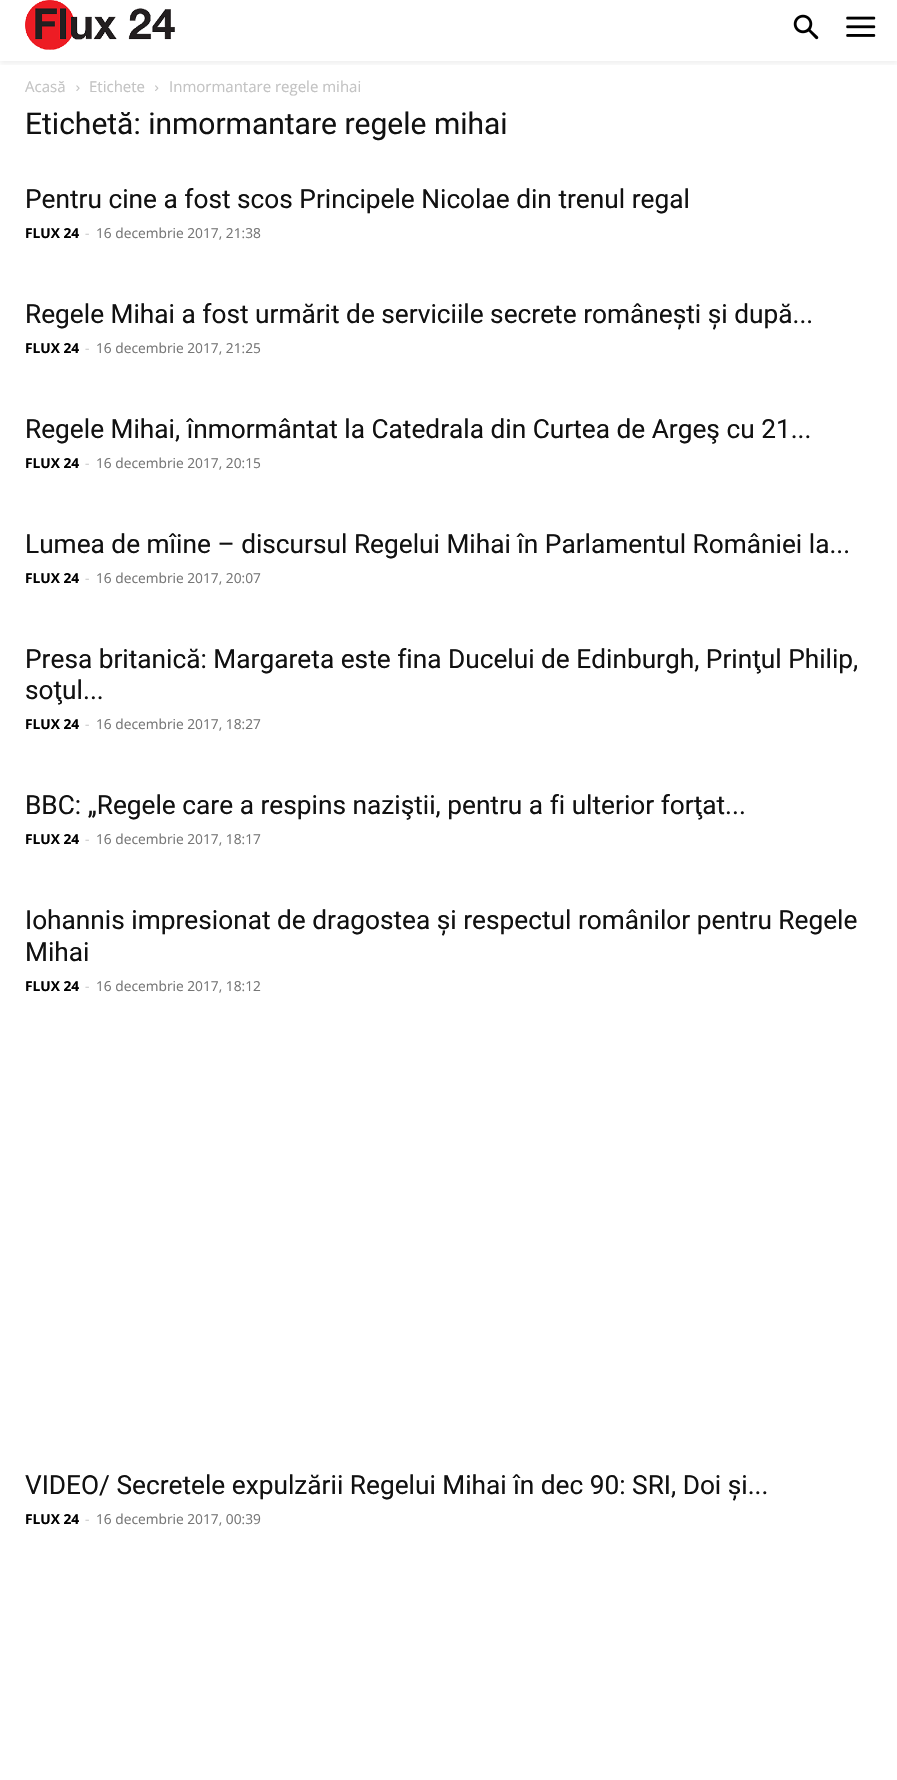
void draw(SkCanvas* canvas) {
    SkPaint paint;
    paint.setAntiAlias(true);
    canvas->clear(0xFFFFFFFF);
    canvas->drawImageRect(SkImages::DeferredFromEncodedData(SkData::MakeFromFileName("img1.png")), SkRect::MakeXYWH(25, 0, 150, 50), SkSamplingOptions());
    canvas->drawImageRect(SkImages::DeferredFromEncodedData(SkData::MakeFromFileName("img2.png")), SkRect::MakeXYWH(793, 14, 26, 26), SkSamplingOptions());
    canvas->drawImageRect(SkImages::DeferredFromEncodedData(SkData::MakeFromFileName("img3.png")), SkRect::MakeXYWH(846, 16, 30, 21), SkSamplingOptions());
    canvas->save();
    canvas->clipRect(SkRect::MakeXYWH(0, 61, 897, 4));
    paint.setColor(0x0F000000);
    paint.setMaskFilter(SkMaskFilter::MakeBlur(kNormal_SkBlurStyle, 2.5f));
    canvas->drawRect(SkRect::MakeXYWH(0, 3, 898, 61), paint);
    paint.setMaskFilter(nullptr);
    canvas->restore();
    SkFont font1(fontMgr->matchFamilyStyle("Open Sans", SkFontStyle::Normal()), 15);
    font1.setSubpixel(true);
    paint.setColor(0xFFC3C3C3);
    canvas->drawString("Acasă", 25, 92, font1, paint);
    canvas->drawImageRect(SkImages::DeferredFromEncodedData(SkData::MakeFromFileName("img4.png")), SkRect::MakeXYWH(76, 85, 4, 6), SkSamplingOptions());
    canvas->drawString("Etichete", 89, 92, font1, paint);
    canvas->drawImageRect(SkImages::DeferredFromEncodedData(SkData::MakeFromFileName("img5.png")), SkRect::MakeXYWH(155, 85, 4, 6), SkSamplingOptions());
    canvas->drawString("Inmormantare regele mihai", 169, 92, font1, paint);
    SkFont font2(fontMgr->matchFamilyStyle("Roboto", SkFontStyle::Normal()), 30);
    font2.setSubpixel(true);
    paint.setColor(0xFF111111);
    canvas->drawString("Etichetă: inmormantare regele mihai", 25, 134, font2, paint);
    SkFont font3(fontMgr->matchFamilyStyle("Roboto", SkFontStyle::Normal()), 26.25f);
    font3.setSubpixel(true);
    canvas->drawString("Pentru cine a fost scos Principele Nicolae din trenul regal", 25, 208, font3, paint);
    SkFont font4(fontMgr->matchFamilyStyle("Open Sans", SkFontStyle::Bold()), 13.75f);
    font4.setSubpixel(true);
    paint.setColor(0xFF000000);
    canvas->drawString("FLUX 24", 25, 238, font4, paint);
    SkFont font5(fontMgr->matchFamilyStyle("Open Sans", SkFontStyle::Normal()), 13.75f);
    font5.setSubpixel(true);
    paint.setColor(0xFFCCCCCC);
    canvas->drawString("-", 85, 238, font5, paint);
    paint.setColor(0xFF767676);
    canvas->drawString("16 decembrie 2017, 21:38", 96, 238, font5, paint);
    paint.setColor(0xFF111111);
    canvas->drawString("Regele Mihai a fost urmărit de serviciile secrete românești și după...", 25, 323, font3, paint);
    paint.setColor(0xFF000000);
    canvas->drawString("FLUX 24", 25, 353, font4, paint);
    paint.setColor(0xFFCCCCCC);
    canvas->drawString("-", 85, 353, font5, paint);
    paint.setColor(0xFF767676);
    canvas->drawString("16 decembrie 2017, 21:25", 96, 353, font5, paint);
    paint.setColor(0xFF111111);
    canvas->drawString("Regele Mihai, înmormântat la Catedrala din Curtea de Argeş cu 21...", 25, 438, font3, paint);
    paint.setColor(0xFF000000);
    canvas->drawString("FLUX 24", 25, 468, font4, paint);
    paint.setColor(0xFFCCCCCC);
    canvas->drawString("-", 85, 468, font5, paint);
    paint.setColor(0xFF767676);
    canvas->drawString("16 decembrie 2017, 20:15", 96, 468, font5, paint);
    paint.setColor(0xFF111111);
    canvas->drawString("Lumea de mîine – discursul Regelui Mihai în Parlamentul României la...", 25, 553, font3, paint);
    paint.setColor(0xFF000000);
    canvas->drawString("FLUX 24", 25, 583, font4, paint);
    paint.setColor(0xFFCCCCCC);
    canvas->drawString("-", 85, 583, font5, paint);
    paint.setColor(0xFF767676);
    canvas->drawString("16 decembrie 2017, 20:07", 96, 583, font5, paint);
    paint.setColor(0xFF111111);
    canvas->drawString("Presa britanică: Margareta este fina Ducelui de Edinburgh, Prinţul Philip,", 25, 668, font3, paint);
    canvas->drawString("soţul...", 25, 699, font3, paint);
    paint.setColor(0xFF000000);
    canvas->drawString("FLUX 24", 25, 729, font4, paint);
    paint.setColor(0xFFCCCCCC);
    canvas->drawString("-", 85, 729, font5, paint);
    paint.setColor(0xFF767676);
    canvas->drawString("16 decembrie 2017, 18:27", 96, 729, font5, paint);
    paint.setColor(0xFF111111);
    canvas->drawString("BBC: „Regele care a respins naziştii, pentru a fi ulterior forţat...", 25, 814, font3, paint);
    paint.setColor(0xFF000000);
    canvas->drawString("FLUX 24", 25, 844, font4, paint);
    paint.setColor(0xFFCCCCCC);
    canvas->drawString("-", 85, 844, font5, paint);
    paint.setColor(0xFF767676);
    canvas->drawString("16 decembrie 2017, 18:17", 96, 844, font5, paint);
    paint.setColor(0xFF111111);
    canvas->drawString("Iohannis impresionat de dragostea și respectul românilor pentru Regele", 25, 929, font3, paint);
    canvas->drawString("Mihai", 25, 961, font3, paint);
    paint.setColor(0xFF000000);
    canvas->drawString("FLUX 24", 25, 991, font4, paint);
    paint.setColor(0xFFCCCCCC);
    canvas->drawString("-", 85, 991, font5, paint);
    paint.setColor(0xFF767676);
    canvas->drawString("16 decembrie 2017, 18:12", 96, 991, font5, paint);
    paint.setColor(0xFF111111);
    canvas->drawString("VIDEO/ Secretele expulzării Regelui Mihai în dec 90: SRI, Doi și...", 25, 1494, font3, paint);
    paint.setColor(0xFF000000);
    canvas->drawString("FLUX 24", 25, 1524, font4, paint);
    paint.setColor(0xFFCCCCCC);
    canvas->drawString("-", 85, 1524, font5, paint);
    paint.setColor(0xFF767676);
    canvas->drawString("16 decembrie 2017, 00:39", 96, 1524, font5, paint);
}
